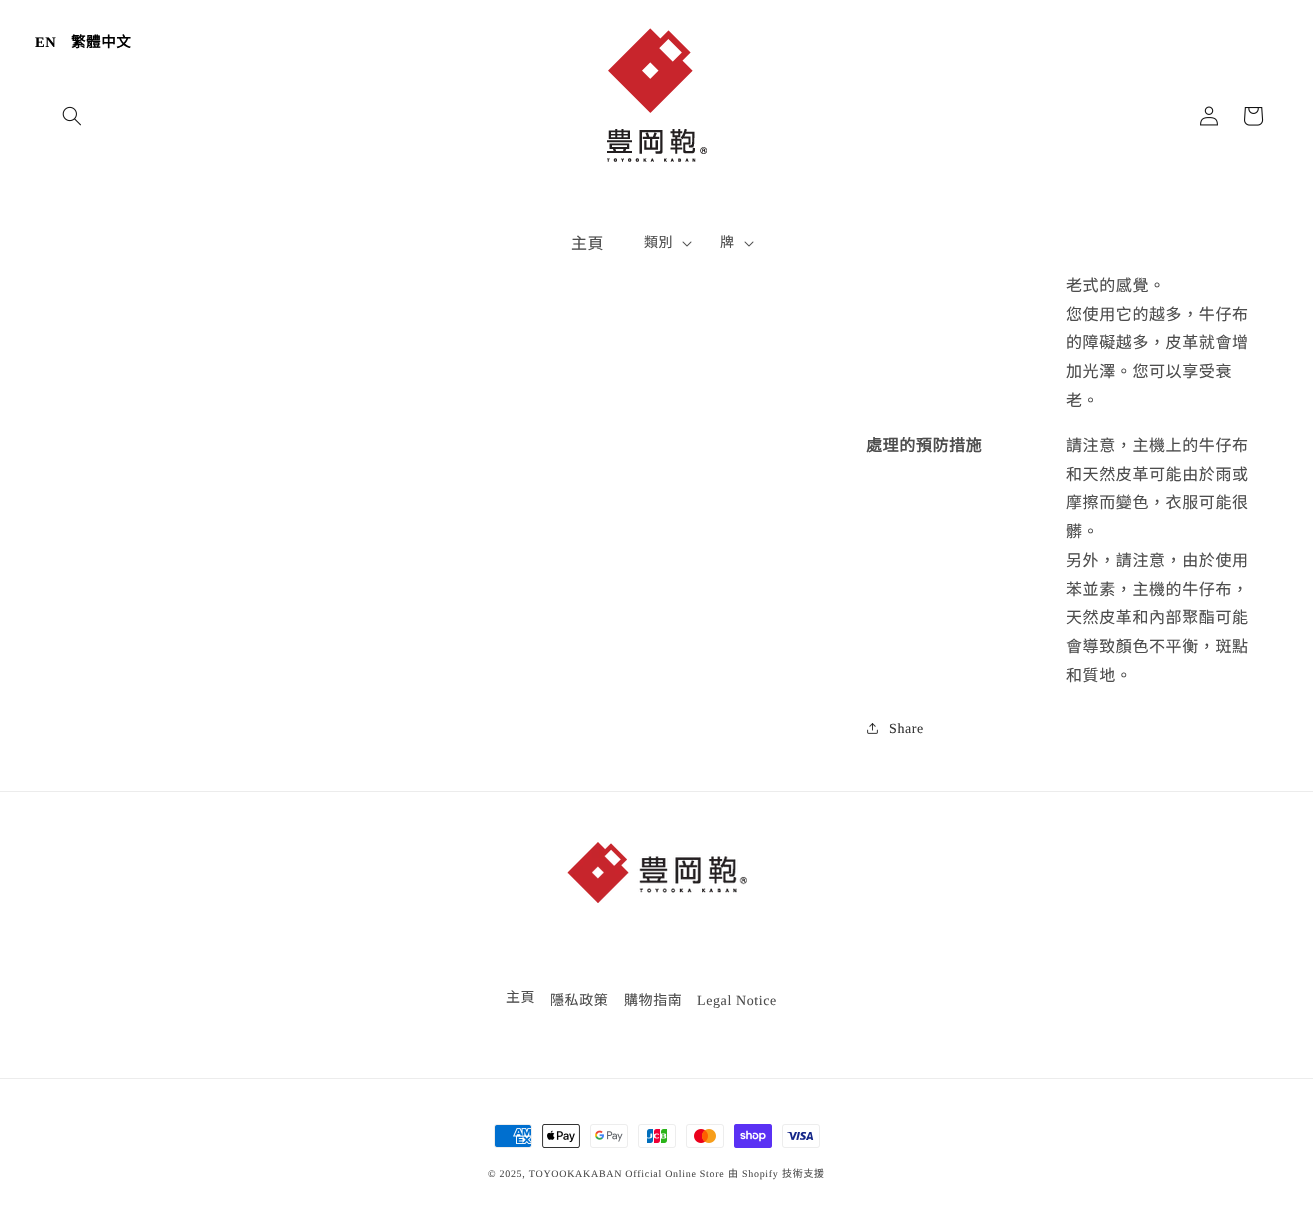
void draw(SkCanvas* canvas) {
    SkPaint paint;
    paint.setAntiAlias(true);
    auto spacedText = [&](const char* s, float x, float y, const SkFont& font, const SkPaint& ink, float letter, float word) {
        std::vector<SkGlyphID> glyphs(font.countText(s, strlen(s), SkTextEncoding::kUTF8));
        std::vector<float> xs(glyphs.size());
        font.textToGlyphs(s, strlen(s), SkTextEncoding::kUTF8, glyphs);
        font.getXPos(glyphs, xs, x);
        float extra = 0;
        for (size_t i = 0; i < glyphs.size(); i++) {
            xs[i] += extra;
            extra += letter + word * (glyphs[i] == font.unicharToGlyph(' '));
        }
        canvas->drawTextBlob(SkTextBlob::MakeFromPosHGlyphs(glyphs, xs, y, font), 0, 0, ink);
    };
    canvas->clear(0xFFFFFFFF);
    SkFont font1(fontMgr->matchFamilyStyle("Liberation Serif", SkFontStyle::Bold()), 14.5f);
    font1.setSubpixel(true);
    paint.setColor(0xFF000000);
    spacedText("EN", 35, 47, font1, paint, 0.6f, 0);
    SkFont font2(fontMgr->matchFamilyStyle("Noto Sans CJK TC", SkFontStyle::Bold()), 14.5f);
    font2.setSubpixel(true);
    spacedText("繁體中文", 71, 47, font2, paint, 0.6f, 0);
    canvas->drawImageRect(SkImages::DeferredFromEncodedData(SkData::MakeFromFileName("img1.png")), SkRect::MakeXYWH(62, 106, 19, 20), SkSamplingOptions());
    canvas->drawImageRect(SkImages::DeferredFromEncodedData(SkData::MakeFromFileName("img2.png")), SkRect::MakeXYWH(607, 28, 100, 134), SkSamplingOptions());
    canvas->drawImageRect(SkImages::DeferredFromEncodedData(SkData::MakeFromFileName("img3.png")), SkRect::MakeXYWH(1200, 106, 18, 20), SkSamplingOptions());
    canvas->drawImageRect(SkImages::DeferredFromEncodedData(SkData::MakeFromFileName("img4.png")), SkRect::MakeXYWH(1244, 107, 20, 19), SkSamplingOptions());
    SkFont font3(fontMgr->matchFamilyStyle("Noto Sans CJK TC", SkFontStyle::Normal()), 16);
    font3.setSubpixel(true);
    paint.setColor(0xFF4D4D4D);
    spacedText("主頁", 571, 249, font3, paint, 0.6f, 0);
    SkFont font4(fontMgr->matchFamilyStyle("Noto Sans CJK TC", SkFontStyle::Normal()), 14);
    font4.setSubpixel(true);
    spacedText("類別", 644, 247, font4, paint, 0.6f, 0);
    canvas->drawImageRect(SkImages::DeferredFromEncodedData(SkData::MakeFromFileName("img5.png")), SkRect::MakeXYWH(682, 241, 10, 6), SkSamplingOptions());
    spacedText("牌", 720, 247, font4, paint, 0.6f, 0);
    canvas->drawImageRect(SkImages::DeferredFromEncodedData(SkData::MakeFromFileName("img5.png")), SkRect::MakeXYWH(744, 241, 10, 6), SkSamplingOptions());
    spacedText("老式的感覺。", 1066, 291, font3, paint, 0.6f, 0);
    spacedText("您使用它的越多，牛仔布", 1066, 320, font3, paint, 0.6f, 0);
    spacedText("的障礙越多，皮革就會增", 1066, 348, font3, paint, 0.6f, 0);
    spacedText("加光澤。您可以享受衰", 1066, 377, font3, paint, 0.6f, 0);
    spacedText("老。", 1066, 406, font3, paint, 0.6f, 0);
    SkFont font5(fontMgr->matchFamilyStyle("Noto Sans CJK TC", SkFontStyle::Bold()), 16);
    font5.setSubpixel(true);
    spacedText("處理的預防措施", 866, 451, font5, paint, 0.6f, 0);
    spacedText("請注意，主機上的牛仔布", 1066, 451, font3, paint, 0.6f, 0);
    spacedText("和天然皮革可能由於雨或", 1066, 480, font3, paint, 0.6f, 0);
    spacedText("摩擦而變色，衣服可能很", 1066, 508, font3, paint, 0.6f, 0);
    spacedText("髒。", 1066, 537, font3, paint, 0.6f, 0);
    spacedText("另外，請注意，由於使用", 1066, 566, font3, paint, 0.6f, 0);
    spacedText("苯並素，主機的牛仔布，", 1066, 595, font3, paint, 0.6f, 0);
    spacedText("天然皮革和內部聚酯可能", 1066, 623, font3, paint, 0.6f, 0);
    spacedText("會導致顏色不平衡，斑點", 1066, 652, font3, paint, 0.6f, 0);
    spacedText("和質地。", 1066, 681, font3, paint, 0.6f, 0);
    canvas->drawImageRect(SkImages::DeferredFromEncodedData(SkData::MakeFromFileName("img6.png")), SkRect::MakeXYWH(867, 723, 11, 11), SkSamplingOptions());
    SkFont font6(fontMgr->matchFamilyStyle("Liberation Serif", SkFontStyle::Normal()), 14);
    font6.setSubpixel(true);
    paint.setColor(0xFF363636);
    spacedText("Share", 889, 733, font6, paint, 0.6f, 0);
    paint.setColor(0xFFECECEC);
    canvas->drawRect(SkRect::MakeXYWH(0, 791, 1313, 1), paint);
    canvas->drawImageRect(SkImages::DeferredFromEncodedData(SkData::MakeFromFileName("img7.png")), SkRect::MakeXYWH(567, 842, 180, 61), SkSamplingOptions());
    paint.setColor(0xFF4D4D4D);
    spacedText("主頁", 506, 1002, font4, paint, 0.6f, 0);
    spacedText("隱私政策", 550, 1005, font4, paint, 0.6f, 0);
    spacedText("購物指南", 624, 1005, font4, paint, 0.6f, 0);
    spacedText("Legal Notice", 697, 1005, font6, paint, 0.6f, 0);
    paint.setColor(0xFFECECEC);
    canvas->drawRect(SkRect::MakeXYWH(0, 1078, 1313, 1), paint);
    canvas->drawImageRect(SkImages::DeferredFromEncodedData(SkData::MakeFromFileName("img8.png")), SkRect::MakeXYWH(494, 1124, 38, 24), SkSamplingOptions());
    canvas->drawImageRect(SkImages::DeferredFromEncodedData(SkData::MakeFromFileName("img9.png")), SkRect::MakeXYWH(542, 1124, 38, 24), SkSamplingOptions());
    canvas->drawImageRect(SkImages::DeferredFromEncodedData(SkData::MakeFromFileName("img10.png")), SkRect::MakeXYWH(590, 1124, 38, 24), SkSamplingOptions());
    canvas->drawImageRect(SkImages::DeferredFromEncodedData(SkData::MakeFromFileName("img11.png")), SkRect::MakeXYWH(638, 1124, 38, 24), SkSamplingOptions());
    canvas->drawImageRect(SkImages::DeferredFromEncodedData(SkData::MakeFromFileName("img12.png")), SkRect::MakeXYWH(686, 1124, 38, 24), SkSamplingOptions());
    canvas->drawImageRect(SkImages::DeferredFromEncodedData(SkData::MakeFromFileName("img13.png")), SkRect::MakeXYWH(734, 1124, 38, 24), SkSamplingOptions());
    canvas->drawImageRect(SkImages::DeferredFromEncodedData(SkData::MakeFromFileName("img14.png")), SkRect::MakeXYWH(782, 1124, 38, 24), SkSamplingOptions());
    SkFont font7(fontMgr->matchFamilyStyle("Liberation Serif", SkFontStyle::Normal()), 10);
    font7.setSubpixel(true);
    paint.setColor(0xFF4D4D4D);
    spacedText("© 2025, TOYOOKAKABAN Official Online Store", 488, 1177, font7, paint, 0.7f, 0);
    SkFont font8(fontMgr->matchFamilyStyle("Noto Sans CJK TC", SkFontStyle::Normal()), 10);
    font8.setSubpixel(true);
    spacedText("由", 728, 1177, font8, paint, 0.7f, 0);
    spacedText("Shopify", 742, 1177, font7, paint, 0.7f, 0);
    spacedText("技術支援", 782, 1177, font8, paint, 0.7f, 0);
}
